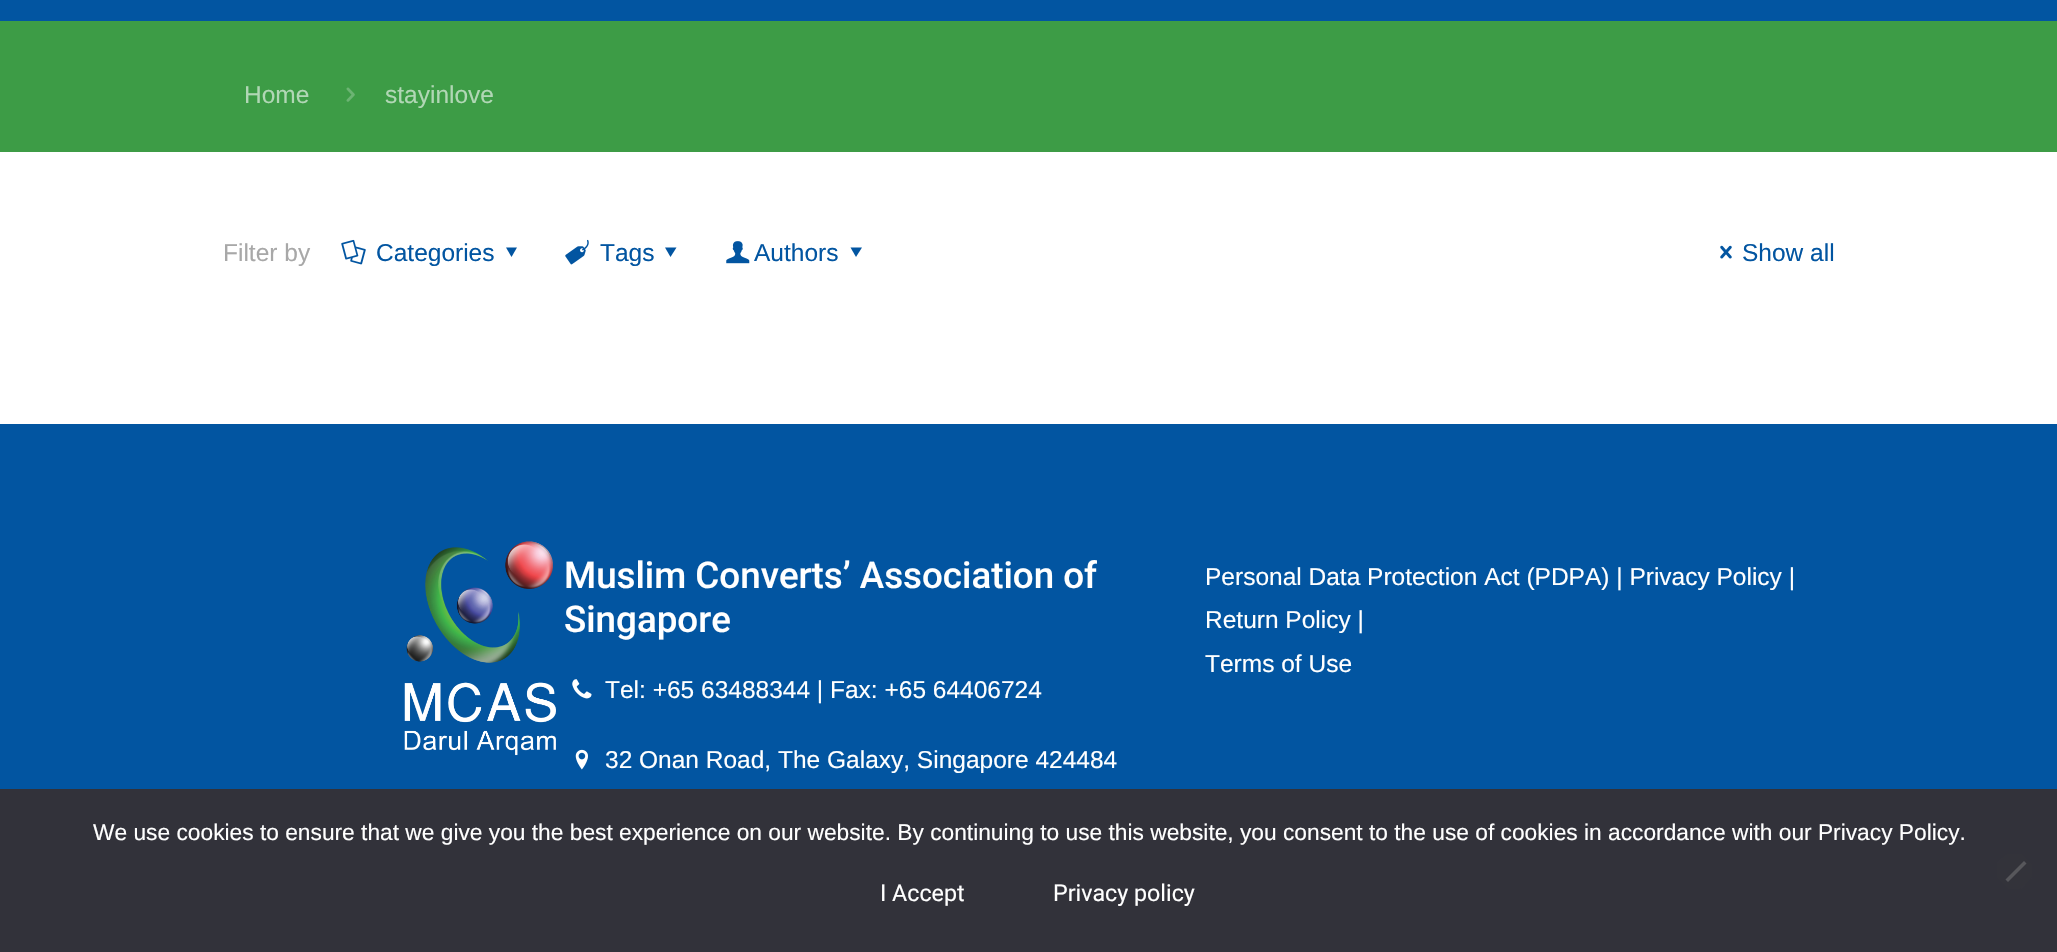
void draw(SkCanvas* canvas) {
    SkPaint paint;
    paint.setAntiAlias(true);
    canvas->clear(0xFFFFFFFF);
    paint.setColor(0xFF0255A1);
    canvas->drawRect(SkRect::MakeXYWH(0, 0, 2057, 21), paint);
    paint.setColor(0xFF3D9C46);
    canvas->drawRect(SkRect::MakeXYWH(0, 21, 2057, 131), paint);
    SkFont font1(fontMgr->matchFamilyStyle("Liberation Sans", SkFontStyle::Normal()), 24.5f);
    font1.setSubpixel(true);
    paint.setColor(0xFFB1D7B5);
    canvas->drawString("Home", 244, 103, font1, paint);
    canvas->drawImageRect(SkImages::DeferredFromEncodedData(SkData::MakeFromFileName("img1.png")), SkRect::MakeXYWH(346, 87, 9, 15), SkSamplingOptions());
    canvas->drawString("stayinlove", 385, 103, font1, paint);
    paint.setColor(0xFFA8A8A8);
    canvas->drawString("Filter by", 223, 261, font1, paint);
    canvas->drawImageRect(SkImages::DeferredFromEncodedData(SkData::MakeFromFileName("img2.png")), SkRect::MakeXYWH(341, 239, 25, 26), SkSamplingOptions());
    paint.setColor(0xFF0255A1);
    canvas->drawString("Categories", 376, 261, font1, paint);
    canvas->drawPath(SkPathBuilder().moveTo(517, 247.5f).lineTo(511.5f, 257).lineTo(506, 247.5f).close().detach(), paint);
    canvas->drawImageRect(SkImages::DeferredFromEncodedData(SkData::MakeFromFileName("img3.png")), SkRect::MakeXYWH(565, 239, 24, 26), SkSamplingOptions());
    canvas->drawString("Tags", 600, 261, font1, paint);
    canvas->drawPath(SkPathBuilder().moveTo(676.5f, 247.5f).lineTo(670.5f, 257).lineTo(665, 247.5f).close().detach(), paint);
    canvas->drawImageRect(SkImages::DeferredFromEncodedData(SkData::MakeFromFileName("img4.png")), SkRect::MakeXYWH(726, 241, 24, 23), SkSamplingOptions());
    canvas->drawString("Authors", 754, 261, font1, paint);
    canvas->drawPath(SkPathBuilder().moveTo(862, 247.5f).lineTo(856, 257).lineTo(850.5f, 247.5f).close().detach(), paint);
    canvas->drawImageRect(SkImages::DeferredFromEncodedData(SkData::MakeFromFileName("img5.png")), SkRect::MakeXYWH(1720, 245, 12, 14), SkSamplingOptions());
    canvas->drawString("Show all", 1742, 261, font1, paint);
    canvas->drawRect(SkRect::MakeXYWH(0, 424, 2057, 365), paint);
    canvas->drawImageRect(SkImages::DeferredFromEncodedData(SkData::MakeFromFileName("img6.png")), SkRect::MakeXYWH(404, 541, 152, 215), SkSamplingOptions());
    SkFont font2(fontMgr->matchFamilyStyle("Roboto", SkFontStyle(500, SkFontStyle::kNormal_Width, SkFontStyle::kUpright_Slant)), 36.75f);
    font2.setSubpixel(true);
    paint.setColor(0xFFFFFFFF);
    canvas->drawString("Muslim Converts’ Association of", 564, 588, font2, paint);
    canvas->drawString("Singapore", 564, 632, font2, paint);
    canvas->drawImageRect(SkImages::DeferredFromEncodedData(SkData::MakeFromFileName("img7.png")), SkRect::MakeXYWH(572, 679, 20, 20), SkSamplingOptions());
    canvas->drawString("Tel: +65 63488344 | Fax: +65 64406724", 605, 698, font1, paint);
    canvas->drawImageRect(SkImages::DeferredFromEncodedData(SkData::MakeFromFileName("img8.png")), SkRect::MakeXYWH(575, 749, 13, 21), SkSamplingOptions());
    canvas->drawString("32 Onan Road, The Galaxy, Singapore 424484", 605, 768, font1, paint);
    canvas->drawString("Personal Data Protection Act (PDPA) | Privacy Policy |", 1205, 585, font1, paint);
    canvas->drawString("Return Policy |", 1205, 628, font1, paint);
    canvas->drawString("Terms of Use", 1205, 672, font1, paint);
    paint.setColor(0xFF32323A);
    canvas->drawRect(SkRect::MakeXYWH(0, 789, 2057, 163), paint);
    SkFont font3(fontMgr->matchFamilyStyle("Liberation Sans", SkFontStyle::Normal()), 22.75f);
    font3.setSubpixel(true);
    paint.setColor(0xFFFFFFFF);
    canvas->drawString("We use cookies to ensure that we give you the best experience on our website. By continuing to use this website, you consent to the use of cookies in accordance with our Privacy Policy.", 93, 840, font3, paint);
    paint.setColor(0xFF59595D);
    canvas->drawPath(SkPathBuilder().moveTo(2024, 861).lineTo(2026.5f, 863.5f).lineTo(2008, 882).lineTo(2005.5f, 879.5f).close().detach(), paint);
    canvas->save();
    canvas->clipRect(SkRect::MakeXYWH(1997, 854, 35, 35));
    paint.setColor(0x1232323A);
    canvas->drawPath(SkPathBuilder().moveTo(1990, 871).lineTo(2014, 846).lineTo(2039, 871).lineTo(2014, 895).close().detach(), paint);
    canvas->restore();
    SkFont font4(fontMgr->matchFamilyStyle("Roboto", SkFontStyle::Normal()), 23.25f);
    font4.setSubpixel(true);
    paint.setColor(0xFFFFFFFF);
    canvas->drawString("I Accept", 880, 901, font4, paint);
    canvas->drawString("Privacy policy", 1053, 901, font4, paint);
}
